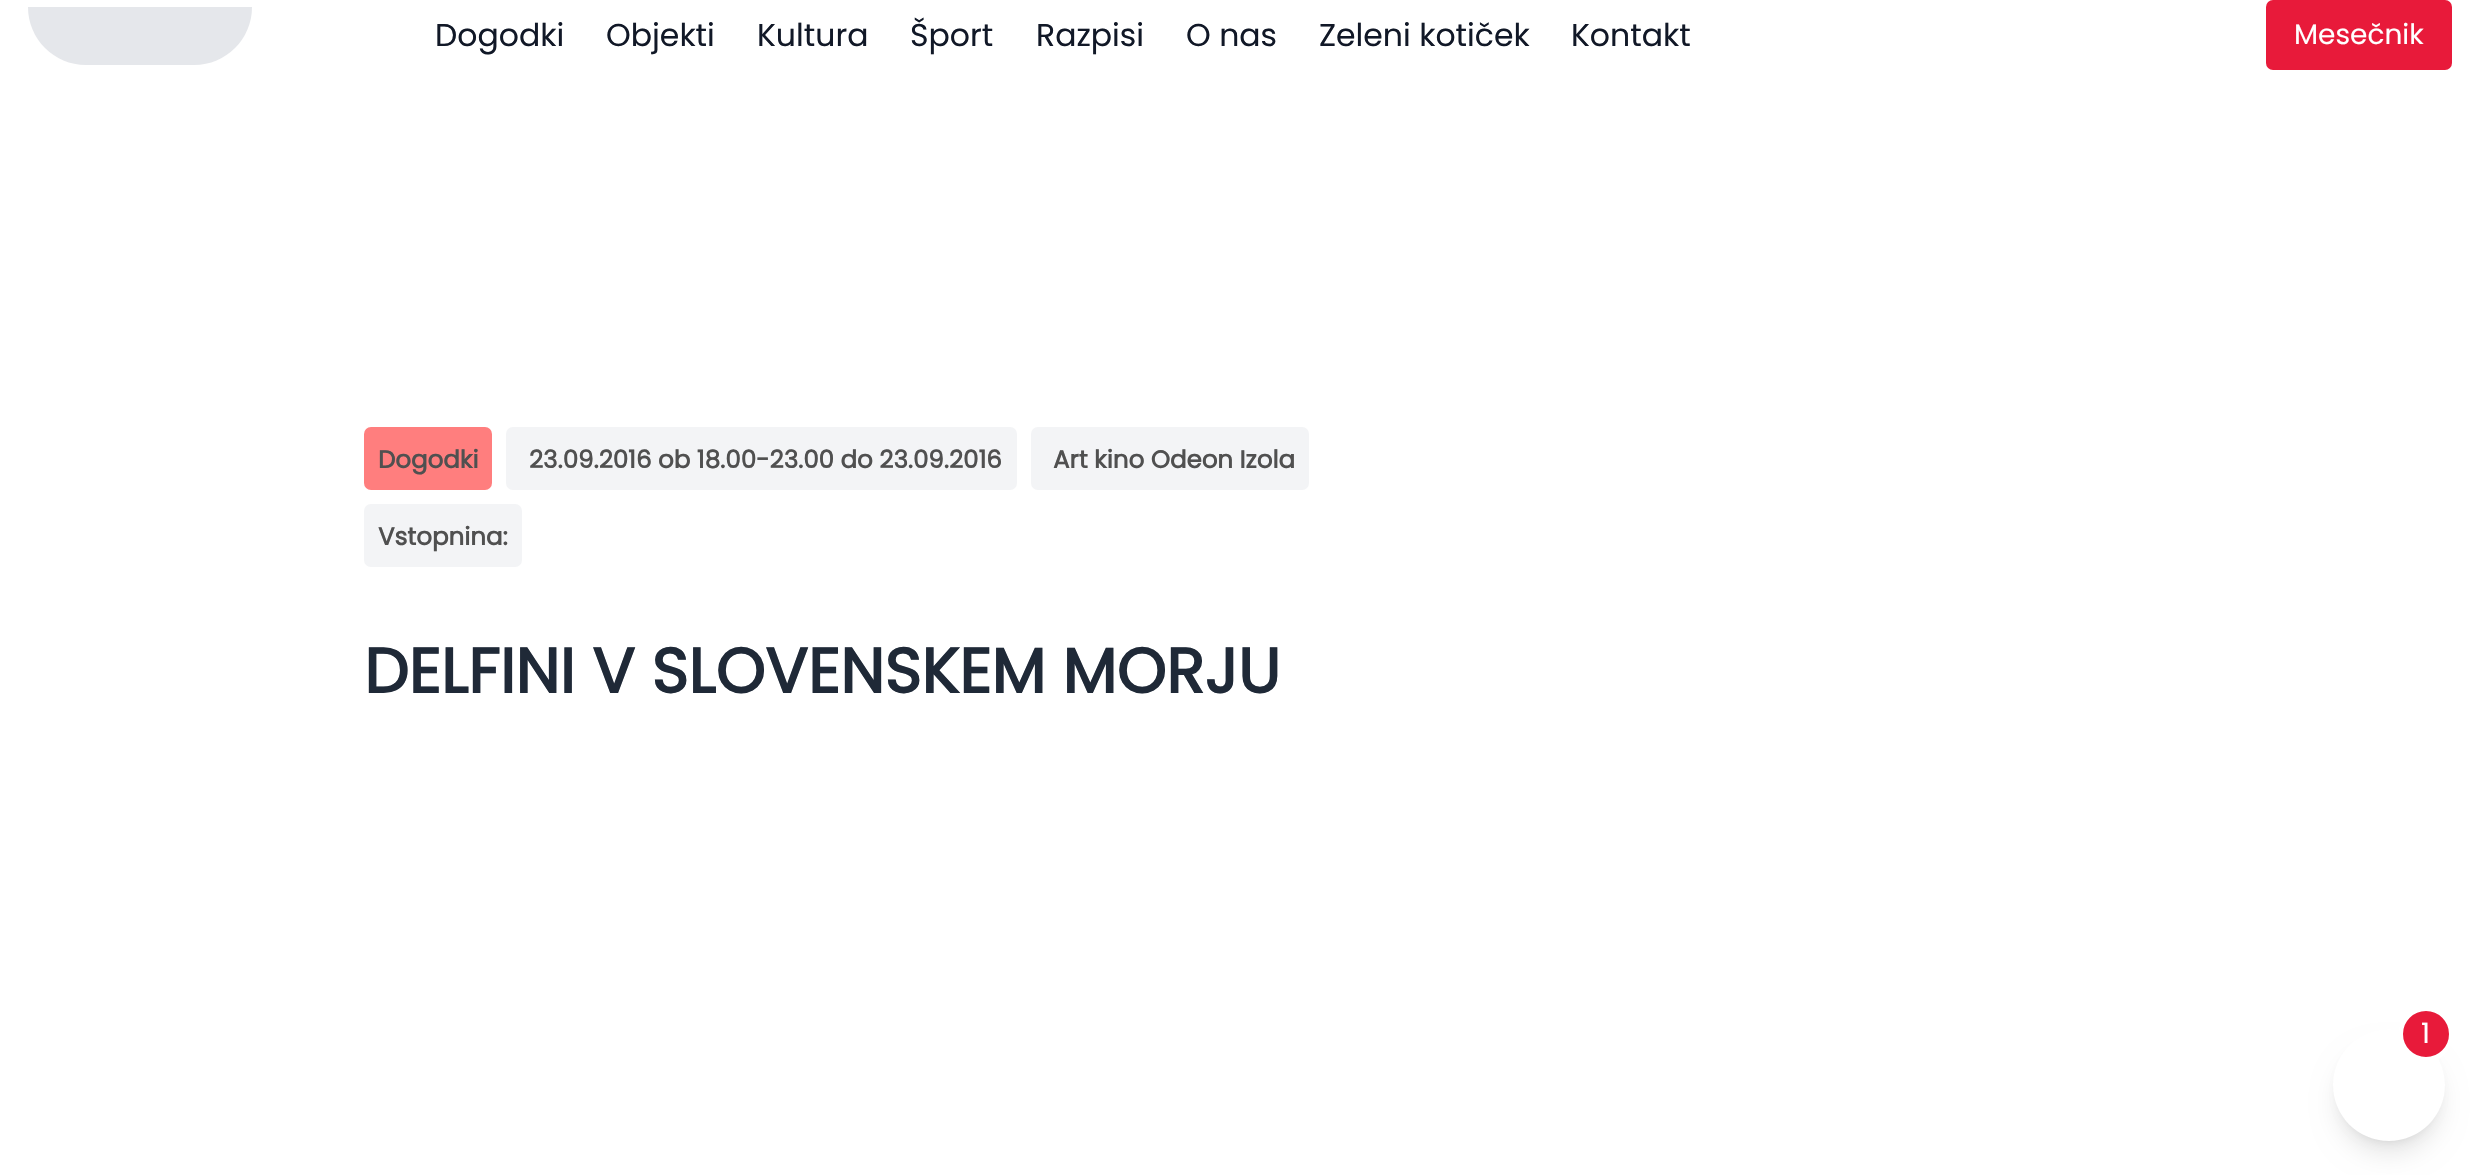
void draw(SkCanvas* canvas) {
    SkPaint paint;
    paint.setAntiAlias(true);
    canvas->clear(0xFFFFFFFF);
    paint.setColor(0xFFE5E7EB);
    canvas->drawPath(SkPathBuilder().moveTo(28, 7).lineTo(252, 7).cubicTo(252, 39, 226, 65, 194, 65).lineTo(86, 65).cubicTo(54, 65, 28, 39, 28, 7).close().detach(), paint);
    SkFont font1(fontMgr->matchFamilyStyle("Poppins", SkFontStyle::Normal()), 31.5f);
    font1.setSubpixel(true);
    paint.setColor(0xFF111827);
    canvas->drawString("Dogodki", 435, 46, font1, paint);
    canvas->drawString("Objekti", 606, 46, font1, paint);
    canvas->drawString("Kultura", 757, 46, font1, paint);
    canvas->drawString("Šport", 910, 46, font1, paint);
    canvas->drawString("Razpisi", 1036, 46, font1, paint);
    canvas->drawString("O nas", 1186, 46, font1, paint);
    canvas->drawString("Zeleni kotiček", 1319, 46, font1, paint);
    canvas->drawString("Kontakt", 1571, 46, font1, paint);
    paint.setColor(0xFFE81A3A);
    canvas->drawRoundRect(SkRect::MakeXYWH(2266, 0, 186, 70), 7, 7, paint);
    SkFont font2(fontMgr->matchFamilyStyle("Poppins", SkFontStyle::Normal()), 28);
    font2.setSubpixel(true);
    paint.setColor(0xFFFFFFFF);
    canvas->drawString("Mesečnik", 2294, 44, font2, paint);
    paint.setColor(0xFFFF7E7E);
    canvas->drawRoundRect(SkRect::MakeXYWH(364, 427, 128, 63), 7, 7, paint);
    SkFont font3(fontMgr->matchFamilyStyle("Poppins", SkFontStyle::Bold()), 24.5f);
    font3.setSubpixel(true);
    paint.setColor(0xFF505050);
    canvas->drawString("Dogodki", 378, 468, font3, paint);
    paint.setColor(0xFFF3F4F6);
    canvas->drawRoundRect(SkRect::MakeXYWH(506, 427, 511, 63), 7, 7, paint);
    paint.setColor(0xFF505050);
    canvas->drawString("23.09.2016 ob 18.00-23.00 do 23.09.2016", 529, 468, font3, paint);
    paint.setColor(0xFFF3F4F6);
    canvas->drawRoundRect(SkRect::MakeXYWH(1031, 427, 278, 63), 7, 7, paint);
    paint.setColor(0xFF505050);
    canvas->drawString("Art kino Odeon Izola", 1053, 468, font3, paint);
    paint.setColor(0xFFF3F4F6);
    canvas->drawRoundRect(SkRect::MakeXYWH(364, 504, 158, 63), 7, 7, paint);
    paint.setColor(0xFF505050);
    canvas->drawString("Vstopnina:", 378, 545, font3, paint);
    SkFont font4(fontMgr->matchFamilyStyle("Poppins", SkFontStyle::Bold()), 63);
    font4.setSubpixel(true);
    paint.setColor(0xFF1F2937);
    canvas->drawString("DELFINI V SLOVENSKEM MORJU", 364, 693, font4, paint);
    canvas->save();
    canvas->clipPath(SkPathBuilder(SkPathFillType::kEvenOdd).moveTo(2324, 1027).lineTo(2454, 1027).lineTo(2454, 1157).lineTo(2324, 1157).close().moveTo(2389, 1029).cubicTo(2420, 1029, 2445, 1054, 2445, 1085).cubicTo(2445, 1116, 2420, 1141, 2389, 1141).cubicTo(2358, 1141, 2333, 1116, 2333, 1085).cubicTo(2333, 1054, 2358, 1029, 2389, 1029).close().detach(), true);
    paint.setColor(0x1A000000);
    paint.setMaskFilter(SkMaskFilter::MakeBlur(kNormal_SkBlurStyle, 5));
    canvas->drawRoundRect(SkRect::MakeXYWH(2340, 1043, 98, 98), 49, 49, paint);
    paint.setMaskFilter(nullptr);
    canvas->restore();
    canvas->save();
    canvas->clipPath(SkPathBuilder(SkPathFillType::kEvenOdd).moveTo(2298, 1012).lineTo(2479, 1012).lineTo(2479, 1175).lineTo(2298, 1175).close().moveTo(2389, 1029).cubicTo(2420, 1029, 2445, 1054, 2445, 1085).cubicTo(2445, 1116, 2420, 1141, 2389, 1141).cubicTo(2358, 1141, 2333, 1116, 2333, 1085).cubicTo(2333, 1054, 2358, 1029, 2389, 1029).close().detach(), true);
    paint.setMaskFilter(SkMaskFilter::MakeBlur(kNormal_SkBlurStyle, 13));
    canvas->drawRoundRect(SkRect::MakeXYWH(2338, 1052, 102, 101), 50.5f, 50.5f, paint);
    paint.setMaskFilter(nullptr);
    canvas->restore();
    paint.setColor(0xFFE81A3A);
    canvas->drawCircle(2426, 1034, 25.5f, paint);
    paint.setStyle(SkPaint::kStroke_Style);
    paint.setStrokeWidth(5);
    paint.setColor(0xFFFFFFFF);
    canvas->drawCircle(2426, 1034, 25.5f, paint);
    paint.setStyle(SkPaint::kFill_Style);
    canvas->drawString("1", 2421, 1043, font2, paint);
}
